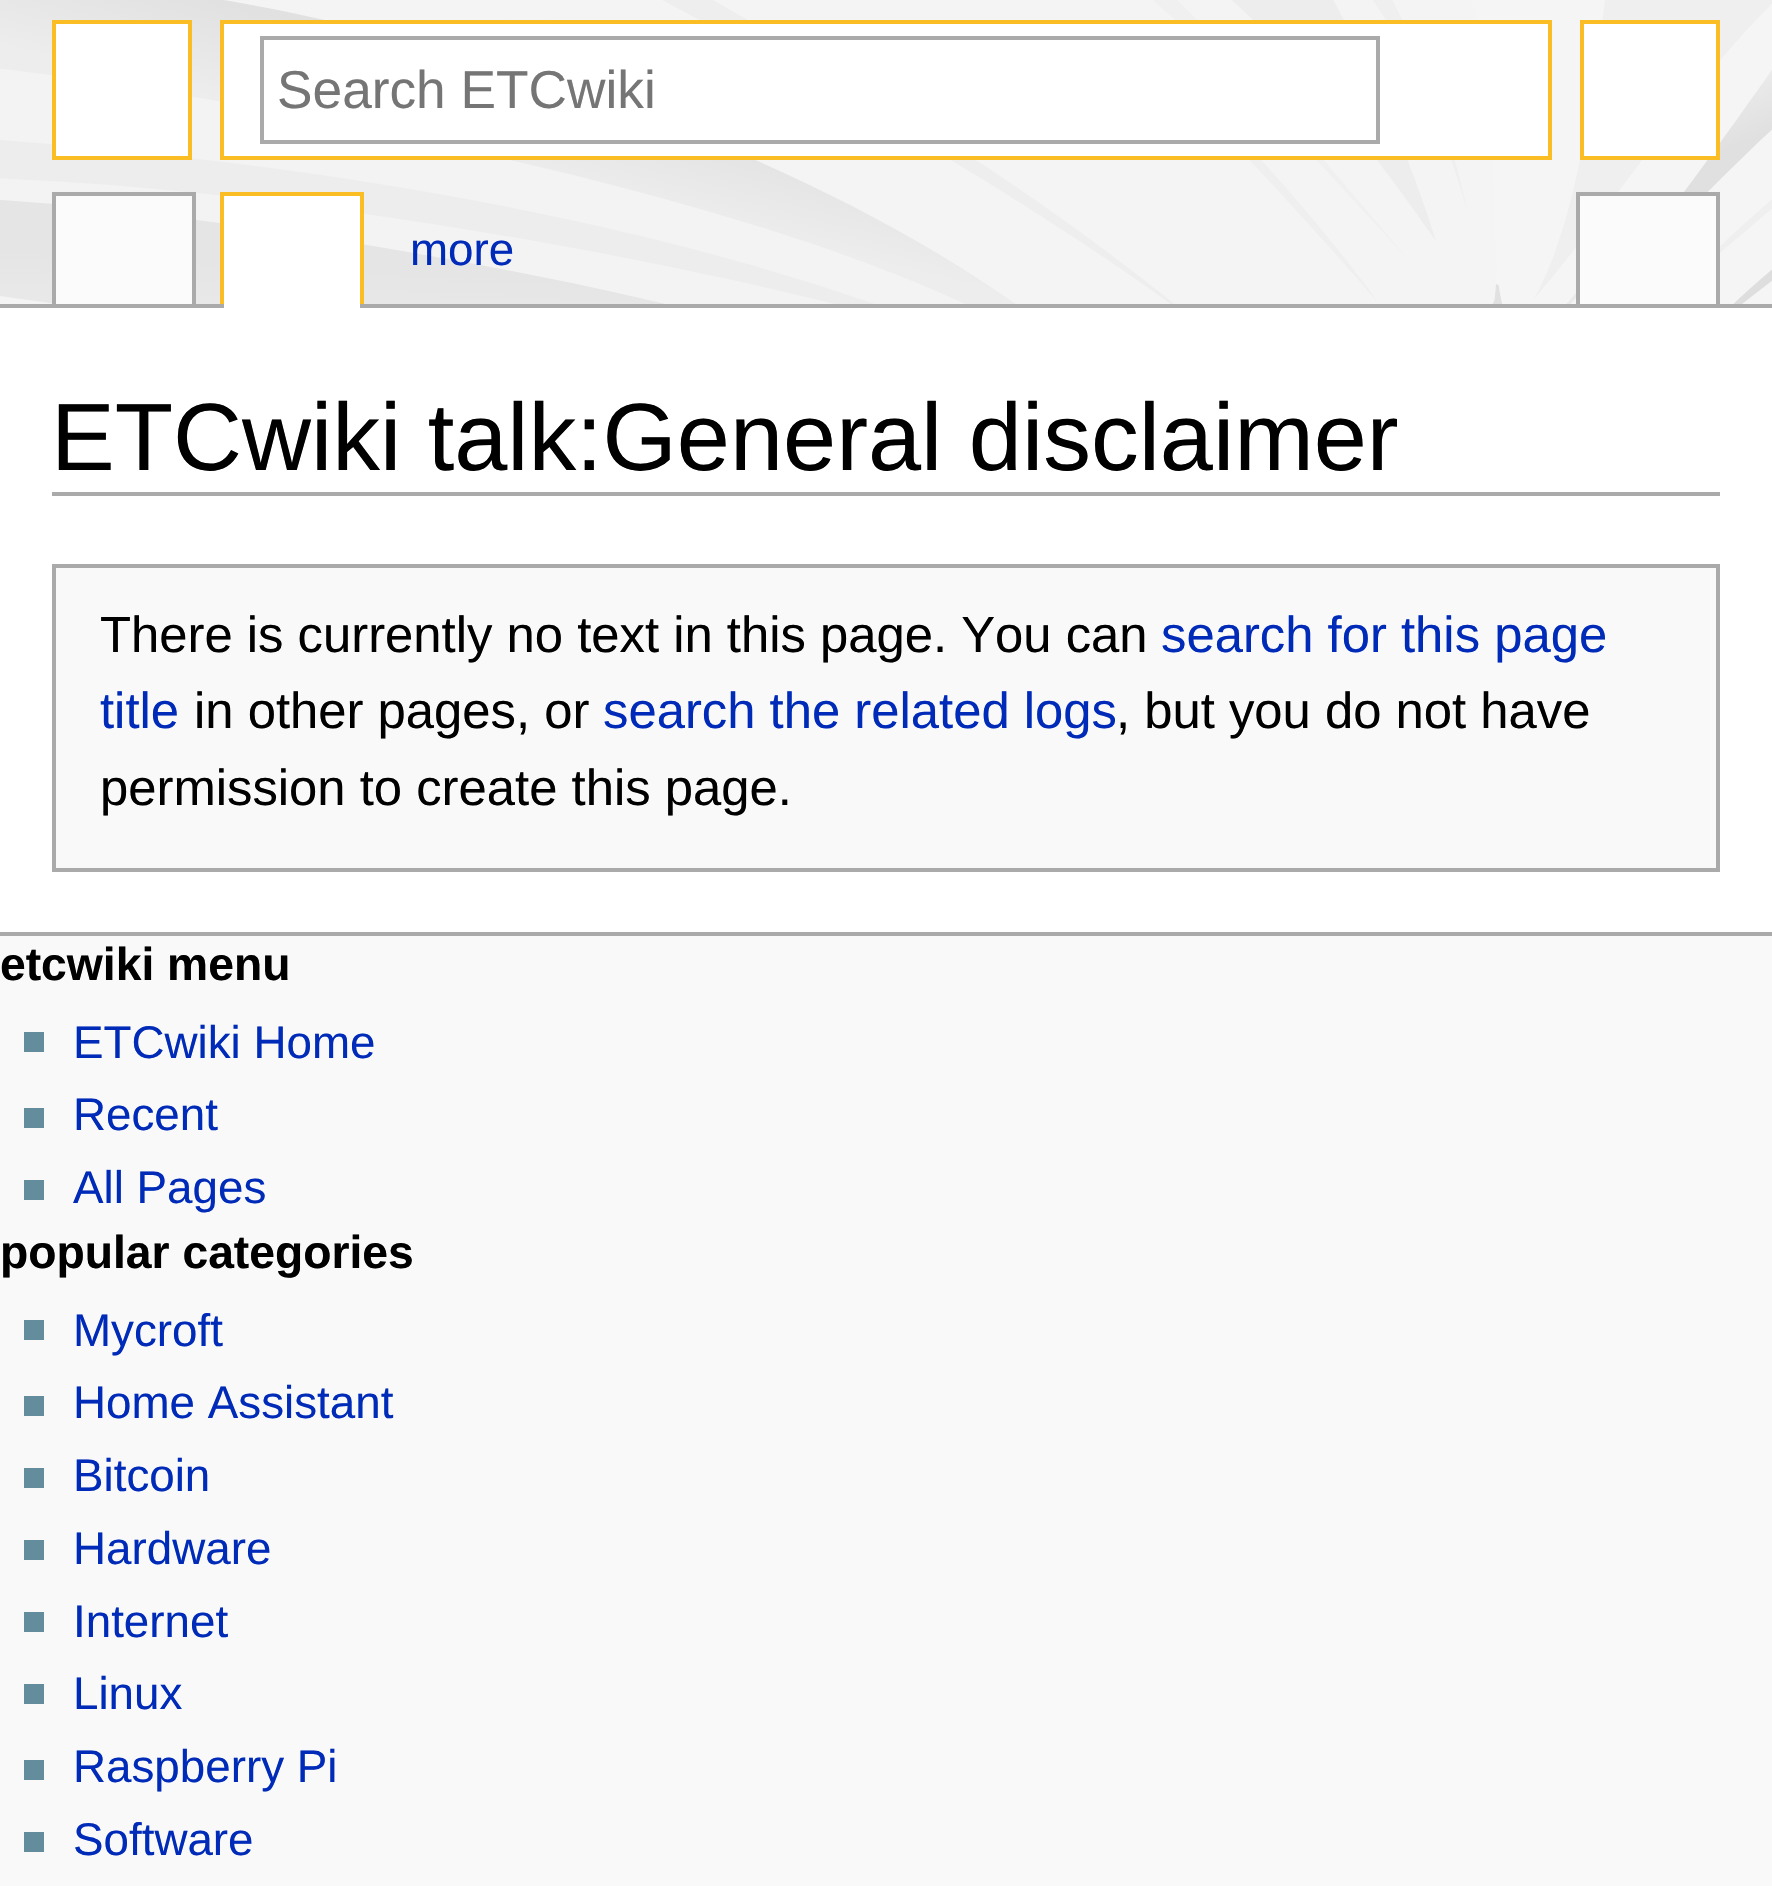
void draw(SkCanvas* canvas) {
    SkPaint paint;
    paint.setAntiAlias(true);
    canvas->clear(0xFFF9F9F9);
    canvas->drawImageRect(SkImages::DeferredFromEncodedData(SkData::MakeFromFileName("img1.png")), SkRect::MakeXYWH(0, 0, 1772, 304), SkSamplingOptions());
    paint.setColor(0xFFFFFFFF);
    canvas->drawRect(SkRect::MakeXYWH(54, 22, 136, 136), paint);
    paint.setStyle(SkPaint::kStroke_Style);
    paint.setStrokeWidth(4);
    paint.setColor(0xFFFABD23);
    canvas->drawRect(SkRect::MakeXYWH(54, 22, 136, 136), paint);
    paint.setStyle(SkPaint::kFill_Style);
    paint.setColor(0xFFFFFFFF);
    canvas->drawRect(SkRect::MakeXYWH(1582, 22, 136, 136), paint);
    paint.setStyle(SkPaint::kStroke_Style);
    paint.setColor(0xFFFABD23);
    canvas->drawRect(SkRect::MakeXYWH(1582, 22, 136, 136), paint);
    paint.setStyle(SkPaint::kFill_Style);
    paint.setColor(0xFFFFFFFF);
    canvas->drawRect(SkRect::MakeXYWH(222, 22, 1328, 136), paint);
    paint.setStyle(SkPaint::kStroke_Style);
    paint.setColor(0xFFFABD23);
    canvas->drawRect(SkRect::MakeXYWH(222, 22, 1328, 136), paint);
    paint.setColor(0xFFAAAAAA);
    canvas->drawRect(SkRect::MakeXYWH(262, 38, 1116, 104), paint);
    SkFont font1(fontMgr->matchFamilyStyle("Liberation Sans", SkFontStyle::Normal()), 53.25f);
    font1.setSubpixel(true);
    paint.setStyle(SkPaint::kFill_Style);
    paint.setColor(0xFF757575);
    canvas->drawString("Search ETCwiki", 277, 108, font1, paint);
    SkFont font2(fontMgr->matchFamilyStyle("Liberation Sans", SkFontStyle::Bold()), 46.25f);
    font2.setSubpixel(true);
    paint.setColor(0xFF000000);
    canvas->drawString("etcwiki menu", 0, 980, font2, paint);
    paint.setColor(0xFF638C9C);
    canvas->drawRect(SkRect::MakeXYWH(24, 1032, 20, 20), paint);
    SkFont font3(fontMgr->matchFamilyStyle("Liberation Sans", SkFontStyle::Normal()), 45.75f);
    font3.setSubpixel(true);
    paint.setColor(0xFF002BB8);
    canvas->drawString("ETCwiki Home", 73, 1058, font3, paint);
    paint.setColor(0xFF638C9C);
    canvas->drawRect(SkRect::MakeXYWH(24, 1108, 20, 20), paint);
    paint.setColor(0xFF002BB8);
    canvas->drawString("Recent", 73, 1130, font3, paint);
    paint.setColor(0xFF638C9C);
    canvas->drawRect(SkRect::MakeXYWH(24, 1180, 20, 20), paint);
    paint.setColor(0xFF002BB8);
    canvas->drawString("All Pages", 73, 1203, font3, paint);
    paint.setColor(0xFF000000);
    canvas->drawString("popular categories", 0, 1268, font2, paint);
    paint.setColor(0xFF638C9C);
    canvas->drawRect(SkRect::MakeXYWH(24, 1320, 20, 20), paint);
    paint.setColor(0xFF002BB8);
    canvas->drawString("Mycroft", 73, 1346, font3, paint);
    paint.setColor(0xFF638C9C);
    canvas->drawRect(SkRect::MakeXYWH(24, 1396, 20, 20), paint);
    paint.setColor(0xFF002BB8);
    canvas->drawString("Home Assistant", 73, 1418, font3, paint);
    paint.setColor(0xFF638C9C);
    canvas->drawRect(SkRect::MakeXYWH(24, 1468, 20, 20), paint);
    paint.setColor(0xFF002BB8);
    canvas->drawString("Bitcoin", 73, 1491, font3, paint);
    paint.setColor(0xFF638C9C);
    canvas->drawRect(SkRect::MakeXYWH(24, 1540, 20, 20), paint);
    paint.setColor(0xFF002BB8);
    canvas->drawString("Hardware", 73, 1564, font3, paint);
    paint.setColor(0xFF638C9C);
    canvas->drawRect(SkRect::MakeXYWH(24, 1612, 20, 20), paint);
    paint.setColor(0xFF002BB8);
    canvas->drawString("Internet", 73, 1637, font3, paint);
    paint.setColor(0xFF638C9C);
    canvas->drawRect(SkRect::MakeXYWH(24, 1684, 20, 20), paint);
    paint.setColor(0xFF002BB8);
    canvas->drawString("Linux", 73, 1709, font3, paint);
    paint.setColor(0xFF638C9C);
    canvas->drawRect(SkRect::MakeXYWH(24, 1760, 20, 20), paint);
    paint.setColor(0xFF002BB8);
    canvas->drawString("Raspberry Pi", 73, 1782, font3, paint);
    paint.setColor(0xFF638C9C);
    canvas->drawRect(SkRect::MakeXYWH(24, 1832, 20, 20), paint);
    paint.setColor(0xFF002BB8);
    canvas->drawString("Software", 73, 1855, font3, paint);
    paint.setColor(0xFFAAAAAA);
    canvas->drawRect(SkRect::MakeXYWH(52, 192, 144, 4), paint);
    canvas->drawRect(SkRect::MakeXYWH(192, 192, 4, 116), paint);
    canvas->drawRect(SkRect::MakeXYWH(52, 192, 4, 116), paint);
    paint.setColor(0xFFFBFBFB);
    canvas->drawRect(SkRect::MakeXYWH(56, 196, 136, 108), paint);
    paint.setColor(0xFFFABD23);
    canvas->drawRect(SkRect::MakeXYWH(220, 192, 144, 4), paint);
    canvas->drawRect(SkRect::MakeXYWH(360, 192, 4, 116), paint);
    canvas->drawRect(SkRect::MakeXYWH(220, 192, 4, 116), paint);
    paint.setColor(0xFFAAAAAA);
    canvas->drawRect(SkRect::MakeXYWH(1576, 192, 144, 4), paint);
    canvas->drawRect(SkRect::MakeXYWH(1716, 192, 4, 116), paint);
    canvas->drawRect(SkRect::MakeXYWH(1576, 192, 4, 116), paint);
    canvas->drawRect(SkRect::MakeXYWH(0, 304, 1772, 4), paint);
    paint.setColor(0xFFFFFFFF);
    canvas->drawRect(SkRect::MakeXYWH(224, 196, 136, 112), paint);
    paint.setColor(0xFF002BB8);
    canvas->drawString("more", 410, 265, font3, paint);
    paint.setColor(0xFFFBFBFB);
    canvas->drawRect(SkRect::MakeXYWH(1580, 196, 136, 108), paint);
    paint.setColor(0xFFFFFFFF);
    canvas->drawRect(SkRect::MakeXYWH(0, 308, 1772, 624), paint);
    paint.setColor(0xFFAAAAAA);
    canvas->drawRect(SkRect::MakeXYWH(0, 932, 1772, 4), paint);
    canvas->drawRect(SkRect::MakeXYWH(52, 492, 1668, 4), paint);
    SkFont font4(fontMgr->matchFamilyStyle("Liberation Sans", SkFontStyle::Normal()), 95.5f);
    font4.setSubpixel(true);
    paint.setColor(0xFF000000);
    canvas->drawString("ETCwiki talk", 51, 470, font4, paint);
    canvas->drawString(":General disclaimer", 576, 470, font4, paint);
    paint.setColor(0xFFF9F9F9);
    canvas->drawRect(SkRect::MakeXYWH(54, 566, 1664, 304), paint);
    paint.setStyle(SkPaint::kStroke_Style);
    paint.setColor(0xFFAAAAAA);
    canvas->drawRect(SkRect::MakeXYWH(54, 566, 1664, 304), paint);
    SkFont font5(fontMgr->matchFamilyStyle("Liberation Sans", SkFontStyle::Normal()), 50.8f);
    font5.setSubpixel(true);
    paint.setStyle(SkPaint::kFill_Style);
    paint.setColor(0xFF000000);
    canvas->drawString("There is currently no text in this page. You can", 100, 652, font5, paint);
    paint.setColor(0xFF002BB8);
    canvas->drawString("search for this page", 1161, 652, font5, paint);
    canvas->drawString("title", 100, 728, font5, paint);
    paint.setColor(0xFF000000);
    canvas->drawString("in other pages, or", 194, 728, font5, paint);
    paint.setColor(0xFF002BB8);
    canvas->drawString("search the related logs", 603, 728, font5, paint);
    paint.setColor(0xFF000000);
    canvas->drawString(", but you do not have", 1116, 728, font5, paint);
    canvas->drawString("permission to create this page.", 100, 805, font5, paint);
}
